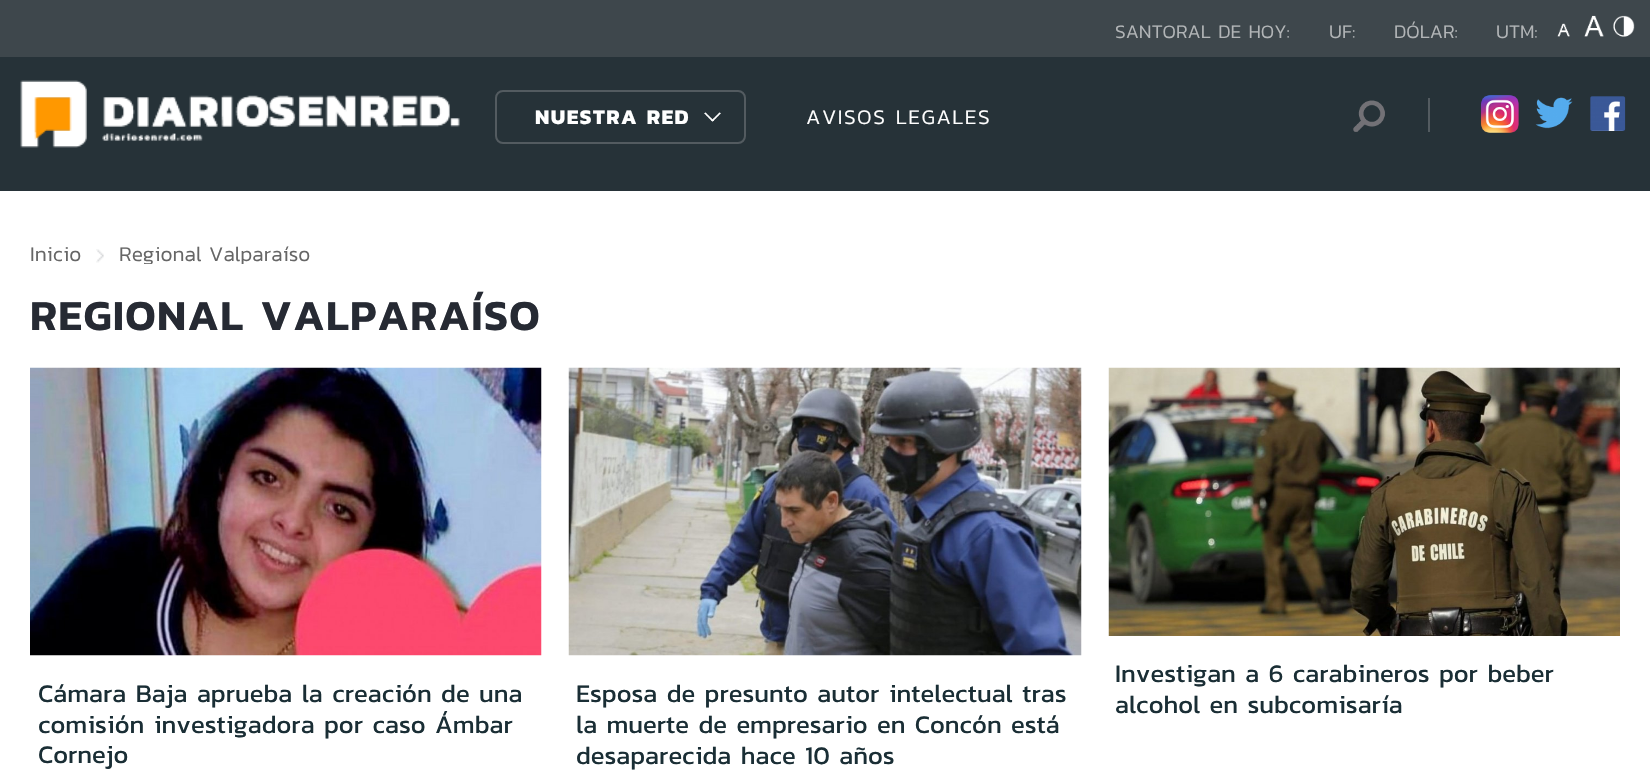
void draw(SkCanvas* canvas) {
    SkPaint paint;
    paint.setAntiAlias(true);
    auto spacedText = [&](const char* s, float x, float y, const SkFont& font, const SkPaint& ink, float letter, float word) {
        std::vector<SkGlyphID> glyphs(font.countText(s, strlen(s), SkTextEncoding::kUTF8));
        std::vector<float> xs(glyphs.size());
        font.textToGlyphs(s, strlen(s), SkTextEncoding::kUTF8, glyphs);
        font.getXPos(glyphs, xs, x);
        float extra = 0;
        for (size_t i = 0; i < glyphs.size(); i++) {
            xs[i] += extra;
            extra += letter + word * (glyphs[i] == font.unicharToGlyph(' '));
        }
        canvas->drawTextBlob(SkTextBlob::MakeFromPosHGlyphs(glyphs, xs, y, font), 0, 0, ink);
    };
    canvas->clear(0xFFFFFFFF);
    paint.setColor(0xFF263238);
    canvas->drawRect(SkRect::MakeXYWH(0, 57, 1650, 134), paint);
    paint.setColor(0xFF3E474C);
    canvas->drawRect(SkRect::MakeXYWH(0, 0, 1650, 57), paint);
    SkFont font1(fontMgr->matchFamilyStyle("Kanit", SkFontStyle(300, SkFontStyle::kNormal_Width, SkFontStyle::kUpright_Slant)), 19.25f);
    font1.setSubpixel(true);
    paint.setColor(0xFFB2B5B7);
    canvas->drawString("SANTORAL DE HOY:", 1115, 38, font1, paint);
    canvas->drawString("UF:", 1329, 38, font1, paint);
    canvas->drawString("DÓLAR:", 1394, 38, font1, paint);
    canvas->drawString("UTM:", 1496, 38, font1, paint);
    canvas->drawImageRect(SkImages::DeferredFromEncodedData(SkData::MakeFromFileName("img1.png")), SkRect::MakeXYWH(1557, 23, 13, 14), SkSamplingOptions());
    canvas->drawImageRect(SkImages::DeferredFromEncodedData(SkData::MakeFromFileName("img2.png")), SkRect::MakeXYWH(1584, 15, 20, 22), SkSamplingOptions());
    canvas->drawImageRect(SkImages::DeferredFromEncodedData(SkData::MakeFromFileName("img3.png")), SkRect::MakeXYWH(1613, 15, 22, 22), SkSamplingOptions());
    canvas->drawImageRect(SkImages::DeferredFromEncodedData(SkData::MakeFromFileName("img4.png")), SkRect::MakeXYWH(20, 80, 440, 68), SkSamplingOptions());
    canvas->drawImageRect(SkImages::DeferredFromEncodedData(SkData::MakeFromFileName("img5.png")), SkRect::MakeXYWH(704, 112, 17, 10), SkSamplingOptions());
    paint.setStyle(SkPaint::kStroke_Style);
    paint.setStrokeWidth(2);
    paint.setColor(0xFF535B60);
    canvas->drawRoundRect(SkRect::MakeXYWH(496, 91, 249, 52), 7, 7, paint);
    SkFont font2(fontMgr->matchFamilyStyle("Kanit", SkFontStyle::Bold()), 21);
    font2.setSubpixel(true);
    paint.setStyle(SkPaint::kFill_Style);
    paint.setColor(0xFFFFFFFF);
    spacedText("NUESTRA RED", 535, 124, font2, paint, 1.5f, 0);
    SkFont font3(fontMgr->matchFamilyStyle("Kanit", SkFontStyle(300, SkFontStyle::kNormal_Width, SkFontStyle::kUpright_Slant)), 21);
    font3.setSubpixel(true);
    spacedText("AVISOS LEGALES", 806, 124, font3, paint, 1.5f, 0);
    canvas->drawImageRect(SkImages::DeferredFromEncodedData(SkData::MakeFromFileName("img6.png")), SkRect::MakeXYWH(1353, 100, 32, 32), SkSamplingOptions());
    paint.setColor(0xFF535B60);
    canvas->drawRect(SkRect::MakeXYWH(1428, 98, 2, 34), paint);
    canvas->drawImageRect(SkImages::DeferredFromEncodedData(SkData::MakeFromFileName("img7.png")), SkRect::MakeXYWH(1480, 95, 39, 38), SkSamplingOptions());
    canvas->drawImageRect(SkImages::DeferredFromEncodedData(SkData::MakeFromFileName("img8.png")), SkRect::MakeXYWH(1535, 97, 38, 32), SkSamplingOptions());
    canvas->drawImageRect(SkImages::DeferredFromEncodedData(SkData::MakeFromFileName("img9.png")), SkRect::MakeXYWH(1590, 96, 36, 35), SkSamplingOptions());
    paint.setColor(0xFF666666);
    canvas->drawString("Inicio", 30, 261, font3, paint);
    canvas->drawImageRect(SkImages::DeferredFromEncodedData(SkData::MakeFromFileName("img10.png")), SkRect::MakeXYWH(96, 249, 8, 14), SkSamplingOptions());
    canvas->save();
    canvas->clipRect(SkRect::MakeXYWH(30, 213, 1590, 51));
    canvas->drawString("Regional", 119, 261, font3, paint);
    canvas->drawString("Valparaíso", 209, 261, font3, paint);
    canvas->restore();
    SkFont font4(fontMgr->matchFamilyStyle("Kanit", SkFontStyle(600, SkFontStyle::kNormal_Width, SkFontStyle::kUpright_Slant)), 43.25f);
    font4.setSubpixel(true);
    paint.setColor(0xFF262A33);
    spacedText("REGIONAL VALPARAÍSO", 30, 330, font4, paint, 1.25f, 0);
    canvas->drawImageRect(SkImages::DeferredFromEncodedData(SkData::MakeFromFileName("img11.png")), SkRect::MakeXYWH(30, 367, 512, 289), SkSamplingOptions());
    SkFont font5(fontMgr->matchFamilyStyle("Kanit", SkFontStyle::Normal()), 25.5f);
    font5.setSubpixel(true);
    paint.setColor(0xFF1A2E35);
    canvas->drawString("Cámara Baja aprueba la creación de una", 38, 702, font5, paint);
    canvas->drawString("comisión investigadora por caso Ámbar", 38, 733, font5, paint);
    canvas->drawString("Cornejo", 38, 763, font5, paint);
    canvas->drawImageRect(SkImages::DeferredFromEncodedData(SkData::MakeFromFileName("img12.png")), SkRect::MakeXYWH(568, 367, 514, 289), SkSamplingOptions());
    canvas->drawString("Esposa de presunto autor intelectual tras", 576, 702, font5, paint);
    canvas->drawString("la muerte de empresario en Concón está", 576, 733, font5, paint);
    canvas->drawString("desaparecida hace 10 años", 576, 764, font5, paint);
    canvas->drawImageRect(SkImages::DeferredFromEncodedData(SkData::MakeFromFileName("img13.png")), SkRect::MakeXYWH(1108, 367, 512, 269), SkSamplingOptions());
    canvas->drawString("Investigan a 6 carabineros por beber", 1115, 682, font5, paint);
    canvas->drawString("alcohol en subcomisaría", 1115, 713, font5, paint);
}
